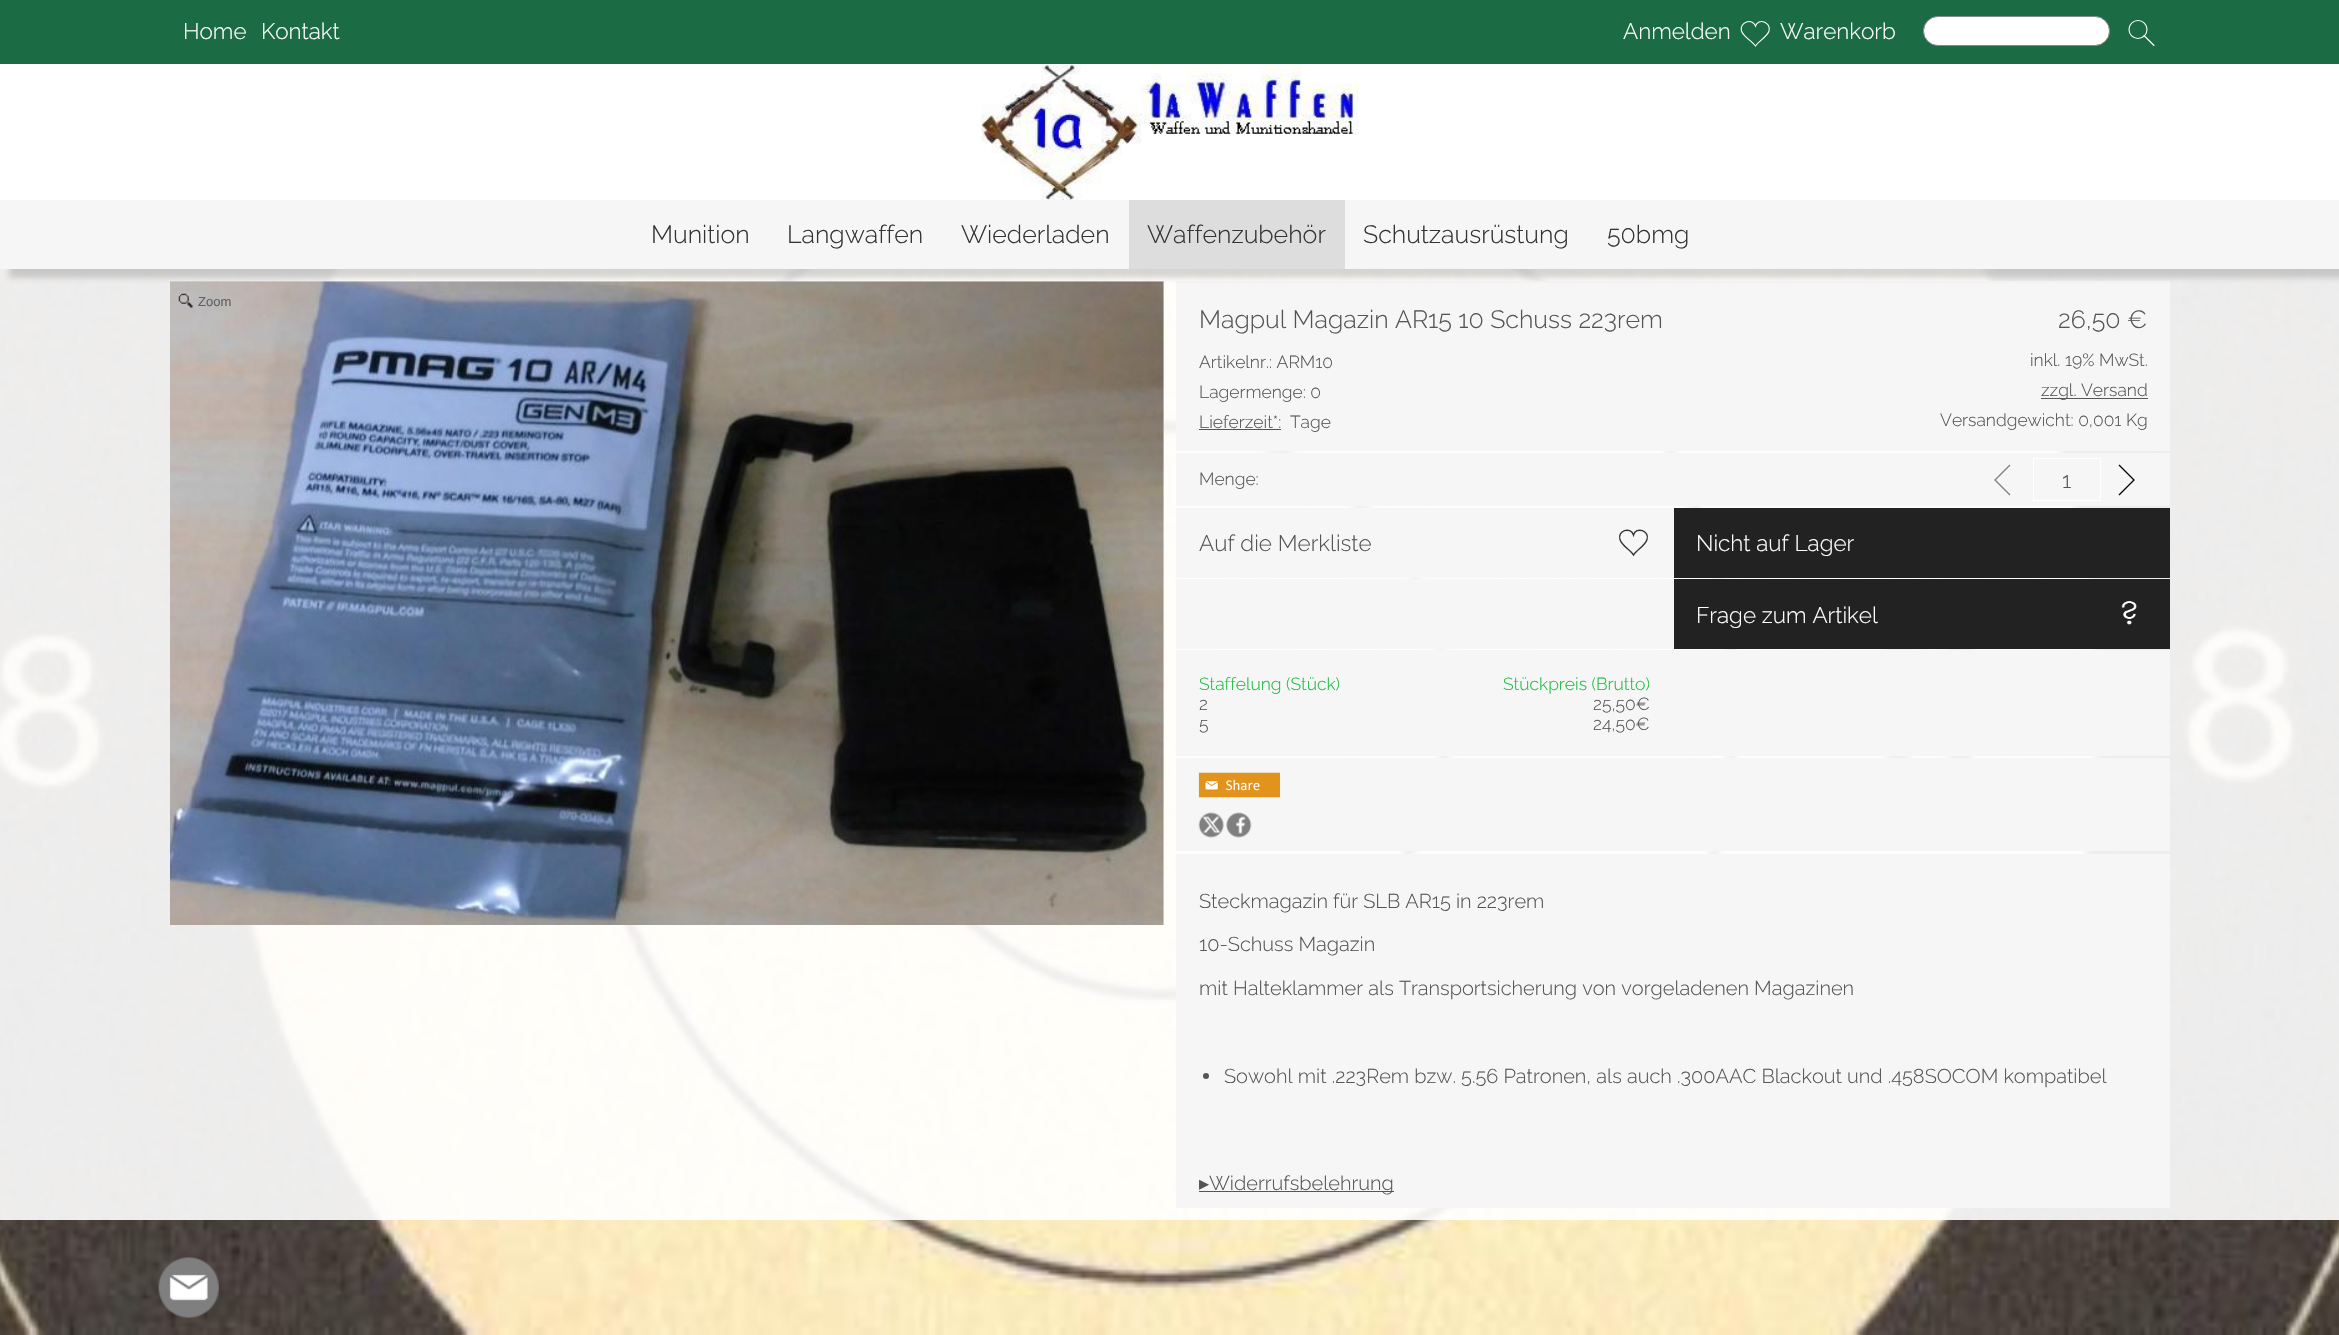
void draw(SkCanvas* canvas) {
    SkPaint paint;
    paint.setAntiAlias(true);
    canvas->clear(0xFFFFFFFF);
    canvas->drawImageRect(SkImages::DeferredFromEncodedData(SkData::MakeFromFileName("img1.png")), SkRect::MakeXYWH(0, 269, 2339, 1066), SkSamplingOptions());
    paint.setColor(0xFF1B6B44);
    canvas->drawRect(SkRect::MakeXYWH(0, 0, 2339, 64), paint);
    SkFont font1(fontMgr->matchFamilyStyle("Raleway", SkFontStyle(300, SkFontStyle::kNormal_Width, SkFontStyle::kUpright_Slant)), 22.5f);
    font1.setSubpixel(true);
    paint.setColor(0xFFFFFFFF);
    canvas->drawString("Home", 183, 39, font1, paint);
    canvas->drawString("Kontakt", 261, 39, font1, paint);
    canvas->drawString("Anmelden", 1623, 39, font1, paint);
    paint.setStyle(SkPaint::kStroke_Style);
    paint.setStrokeWidth(1.1f);
    canvas->drawPath(SkPathBuilder().moveTo(1755.5f, 46).cubicTo(1751.5f, 40.5f, 1743.5f, 37, 1741.5f, 31).cubicTo(1739, 22, 1752.5f, 17.5f, 1755.5f, 26).cubicTo(1758, 17.5f, 1771.5f, 22, 1769, 31).cubicTo(1767, 37, 1759, 40.5f, 1755.5f, 46).close().detach(), paint);
    paint.setStyle(SkPaint::kFill_Style);
    canvas->drawString("Warenkorb", 1780, 39, font1, paint);
    canvas->drawRoundRect(SkRect::MakeXYWH(1923.5f, 16.5f, 186, 29), 14.5f, 14.5f, paint);
    paint.setStyle(SkPaint::kStroke_Style);
    paint.setStrokeWidth(1);
    paint.setColor(0xFF888888);
    canvas->drawRoundRect(SkRect::MakeXYWH(1923.5f, 16.5f, 186, 29), 14.5f, 14.5f, paint);
    paint.setStrokeWidth(1.1f);
    paint.setColor(0xFFFFFFFF);
    canvas->drawCircle(2138, 29.5f, 9, paint);
    paint.setStrokeCap(SkPaint::kRound_Cap);
    canvas->drawPath(SkPathBuilder().moveTo(2144, 35.5f).lineTo(2154, 45.5f).detach(), paint);
    canvas->drawImageRect(SkImages::DeferredFromEncodedData(SkData::MakeFromFileName("img2.png")), SkRect::MakeXYWH(981, 64, 378, 136), SkSamplingOptions());
    paint.setStyle(SkPaint::kFill_Style);
    paint.setColor(0xE6FFFFFF);
    canvas->drawRect(SkRect::MakeXYWH(0, 269, 2339, 951), paint);
    canvas->drawImageRect(SkImages::DeferredFromEncodedData(SkData::MakeFromFileName("img3.png")), SkRect::MakeXYWH(170, 281, 994, 644), SkSamplingOptions());
    paint.setColor(0xFFF6F6F6);
    canvas->drawRect(SkRect::MakeXYWH(1176, 281, 994, 170), paint);
    paint.setColor(0x33323232);
    paint.setMaskFilter(SkMaskFilter::MakeBlur(kNormal_SkBlurStyle, 3));
    canvas->drawRect(SkRect::MakeXYWH(9, 209, 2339, 69), paint);
    paint.setMaskFilter(nullptr);
    paint.setColor(0xFFF6F6F6);
    canvas->drawRect(SkRect::MakeXYWH(0, 200, 2339, 69), paint);
    SkFont font2(fontMgr->matchFamilyStyle("Raleway", SkFontStyle(300, SkFontStyle::kNormal_Width, SkFontStyle::kUpright_Slant)), 25);
    font2.setSubpixel(true);
    paint.setColor(0xFF333333);
    canvas->drawString("Munition", 651, 243, font2, paint);
    canvas->drawString("Langwaffen", 787, 243, font2, paint);
    canvas->drawString("Wiederladen", 961, 243, font2, paint);
    paint.setColor(0xFFDDDDDD);
    canvas->drawRect(SkRect::MakeXYWH(1129, 200, 216, 69), paint);
    paint.setColor(0xFF333333);
    canvas->drawString("Waffenzubehör", 1147, 243, font2, paint);
    canvas->drawString("Schutzausrüstung", 1363, 243, font2, paint);
    canvas->drawString("50bmg", 1607, 243, font2, paint);
    canvas->drawImageRect(SkImages::DeferredFromEncodedData(SkData::MakeFromFileName("img4.png")), SkRect::MakeXYWH(178, 293, 15, 15), SkSamplingOptions());
    SkFont font3(fontMgr->matchFamilyStyle("Liberation Sans", SkFontStyle::Normal()), 13);
    font3.setSubpixel(true);
    paint.setColor(0xFF626161);
    canvas->drawString("Zoom", 198, 306, font3, paint);
    paint.setColor(0xFF555555);
    canvas->drawString("Magpul Magazin AR15 10 Schuss 223rem", 1199, 328, font2, paint);
    SkFont font4(fontMgr->matchFamilyStyle("Raleway", SkFontStyle(300, SkFontStyle::kNormal_Width, SkFontStyle::kUpright_Slant)), 17.5f);
    font4.setSubpixel(true);
    canvas->drawString("Artikelnr.: ARM10", 1199, 368, font4, paint);
    canvas->drawString("Lagermenge: 0", 1199, 398, font4, paint);
    canvas->drawString("Lieferzeit*:", 1199, 428, font4, paint);
    canvas->drawRect(SkRect::MakeXYWH(1199, 429, 82, 1), paint);
    canvas->drawString("Tage", 1290, 428, font4, paint);
    canvas->drawString("26,50 €", 2058, 328, font2, paint);
    canvas->drawString("inkl. 19% MwSt.", 2030, 366, font4, paint);
    canvas->drawRect(SkRect::MakeXYWH(2041, 398, 107, 1), paint);
    canvas->drawString("zzgl. Versand", 2041, 396, font4, paint);
    canvas->drawString("Versandgewicht: 0,001 Kg", 1940, 426, font4, paint);
    paint.setColor(0xFFF6F6F6);
    canvas->drawRect(SkRect::MakeXYWH(1176, 453, 994, 53), paint);
    paint.setColor(0xFF555555);
    canvas->drawString("Menge:", 1199, 485, font4, paint);
    paint.setStyle(SkPaint::kStroke_Style);
    paint.setStrokeWidth(1.3f);
    paint.setStrokeCap(SkPaint::kButt_Cap);
    paint.setColor(0xFF7B7B7B);
    canvas->drawPath(SkPathBuilder().moveTo(2010, 465).lineTo(1995, 480).lineTo(2010, 495).detach(), paint);
    paint.setStrokeWidth(1);
    paint.setColor(0xFFFFFFFF);
    canvas->drawRect(SkRect::MakeXYWH(2033.5f, 458.5f, 67, 42), paint);
    paint.setStyle(SkPaint::kFill_Style);
    paint.setColor(0xFF555555);
    canvas->drawString("1", 2062, 488, font1, paint);
    paint.setStyle(SkPaint::kStroke_Style);
    paint.setStrokeWidth(1.3f);
    paint.setColor(0xFF000000);
    canvas->drawPath(SkPathBuilder().moveTo(2119, 465).lineTo(2134, 480).lineTo(2119, 495).detach(), paint);
    paint.setStyle(SkPaint::kFill_Style);
    paint.setColor(0xFFF6F6F6);
    canvas->drawRect(SkRect::MakeXYWH(1176, 508, 498, 70), paint);
    paint.setColor(0xFF555555);
    canvas->drawString("Auf die Merkliste", 1199, 551, font1, paint);
    paint.setStyle(SkPaint::kStroke_Style);
    paint.setStrokeWidth(1.4f);
    paint.setColor(0xFF333333);
    canvas->drawPath(SkPathBuilder().moveTo(1633.5f, 555).cubicTo(1630, 549.5f, 1622, 546, 1620, 539.5f).cubicTo(1617, 531, 1630.5f, 526, 1633.5f, 535).cubicTo(1636, 526, 1650, 531, 1647, 539.5f).cubicTo(1645, 546, 1637, 549.5f, 1633.5f, 555).close().detach(), paint);
    paint.setStyle(SkPaint::kFill_Style);
    paint.setColor(0xFF222222);
    canvas->drawRect(SkRect::MakeXYWH(1674, 508, 496, 70), paint);
    paint.setColor(0xFFFFFFFF);
    canvas->drawString("Nicht auf Lager", 1696, 551, font1, paint);
    paint.setColor(0xFFF6F6F6);
    canvas->drawRect(SkRect::MakeXYWH(1176, 579, 498, 70), paint);
    paint.setColor(0xFF222222);
    canvas->drawRect(SkRect::MakeXYWH(1674, 579, 496, 70), paint);
    paint.setColor(0xFFFFFFFF);
    canvas->drawString("Frage zum Artikel", 1696, 623, font1, paint);
    canvas->drawImageRect(SkImages::DeferredFromEncodedData(SkData::MakeFromFileName("img5.png")), SkRect::MakeXYWH(2121, 601, 16, 24), SkSamplingOptions());
    paint.setColor(0xFFF6F6F6);
    canvas->drawRect(SkRect::MakeXYWH(1176, 650, 994, 106), paint);
    paint.setColor(0xFF19BD3D);
    canvas->drawString("Staffelung (Stück)", 1199, 690, font4, paint);
    canvas->drawString("Stückpreis (Brutto)", 1503, 690, font4, paint);
    paint.setColor(0xFF555555);
    canvas->drawString("2", 1199, 710, font4, paint);
    canvas->drawString("25,50€", 1593, 710, font4, paint);
    canvas->drawString("5", 1199, 730, font4, paint);
    canvas->drawString("24,50€", 1593, 730, font4, paint);
    paint.setColor(0xFFF6F6F6);
    canvas->drawRect(SkRect::MakeXYWH(1176, 758, 994, 93), paint);
    canvas->drawImageRect(SkImages::DeferredFromEncodedData(SkData::MakeFromFileName("img6.png")), SkRect::MakeXYWH(1198, 772, 82, 26), SkSamplingOptions());
    canvas->drawImageRect(SkImages::DeferredFromEncodedData(SkData::MakeFromFileName("img7.png")), SkRect::MakeXYWH(1198, 812, 26, 26), SkSamplingOptions());
    canvas->drawImageRect(SkImages::DeferredFromEncodedData(SkData::MakeFromFileName("img8.png")), SkRect::MakeXYWH(1226, 812, 26, 26), SkSamplingOptions());
    canvas->drawRect(SkRect::MakeXYWH(1176, 854, 994, 354), paint);
    SkFont font5(fontMgr->matchFamilyStyle("Raleway", SkFontStyle(300, SkFontStyle::kNormal_Width, SkFontStyle::kUpright_Slant)), 20);
    font5.setSubpixel(true);
    paint.setColor(0xFF555555);
    canvas->drawString("Steckmagazin für SLB AR15 in 223rem", 1199, 908, font5, paint);
    canvas->drawString("10-Schuss Magazin", 1199, 951, font5, paint);
    canvas->drawString("mit Halteklammer als Transportsicherung von vorgeladenen Magazinen", 1199, 995, font5, paint);
    canvas->drawCircle(1206, 1076, 3, paint);
    canvas->drawString("Sowohl mit .223Rem bzw. 5.56 Patronen, als auch .300AAC Blackout und .458SOCOM kompatibel", 1224, 1083, font5, paint);
    SkFont font6(fontMgr->matchFamilyStyle("DejaVu Sans", SkFontStyle::Normal()), 20);
    font6.setSubpixel(true);
    canvas->drawString("▸", 1199, 1190, font6, paint);
    canvas->drawRect(SkRect::MakeXYWH(1199, 1191, 195, 1), paint);
    canvas->drawString("Widerrufsbelehrung", 1209, 1190, font5, paint);
    canvas->drawImageRect(SkImages::DeferredFromEncodedData(SkData::MakeFromFileName("img9.png")), SkRect::MakeXYWH(158, 1257, 61, 61), SkSamplingOptions());
}
